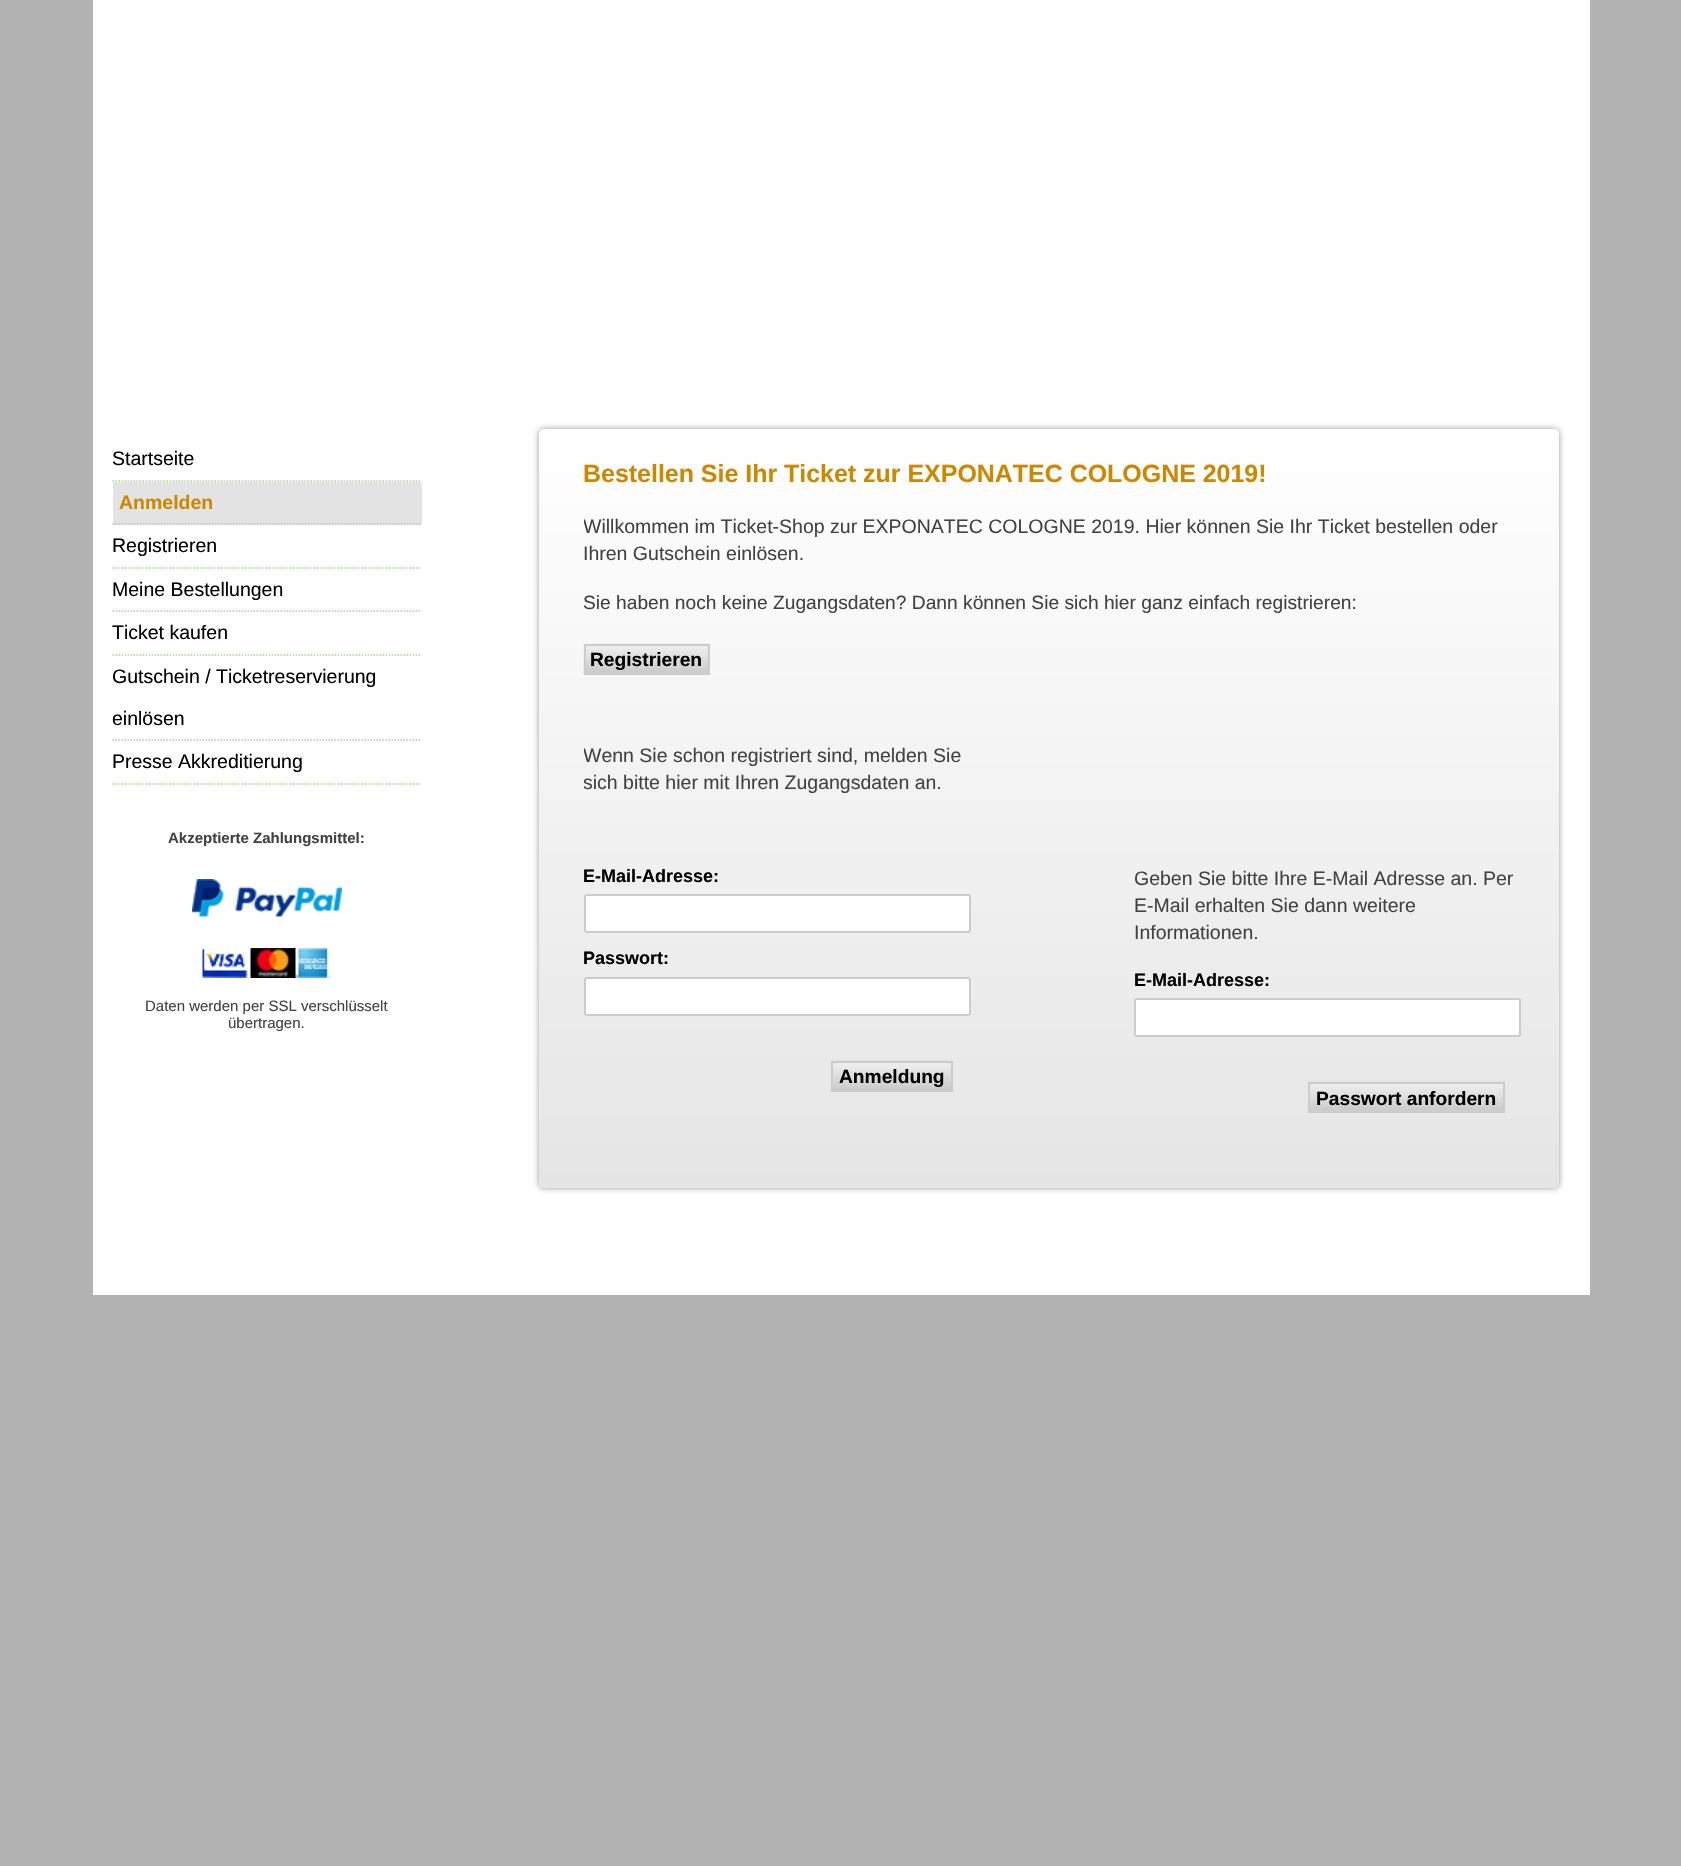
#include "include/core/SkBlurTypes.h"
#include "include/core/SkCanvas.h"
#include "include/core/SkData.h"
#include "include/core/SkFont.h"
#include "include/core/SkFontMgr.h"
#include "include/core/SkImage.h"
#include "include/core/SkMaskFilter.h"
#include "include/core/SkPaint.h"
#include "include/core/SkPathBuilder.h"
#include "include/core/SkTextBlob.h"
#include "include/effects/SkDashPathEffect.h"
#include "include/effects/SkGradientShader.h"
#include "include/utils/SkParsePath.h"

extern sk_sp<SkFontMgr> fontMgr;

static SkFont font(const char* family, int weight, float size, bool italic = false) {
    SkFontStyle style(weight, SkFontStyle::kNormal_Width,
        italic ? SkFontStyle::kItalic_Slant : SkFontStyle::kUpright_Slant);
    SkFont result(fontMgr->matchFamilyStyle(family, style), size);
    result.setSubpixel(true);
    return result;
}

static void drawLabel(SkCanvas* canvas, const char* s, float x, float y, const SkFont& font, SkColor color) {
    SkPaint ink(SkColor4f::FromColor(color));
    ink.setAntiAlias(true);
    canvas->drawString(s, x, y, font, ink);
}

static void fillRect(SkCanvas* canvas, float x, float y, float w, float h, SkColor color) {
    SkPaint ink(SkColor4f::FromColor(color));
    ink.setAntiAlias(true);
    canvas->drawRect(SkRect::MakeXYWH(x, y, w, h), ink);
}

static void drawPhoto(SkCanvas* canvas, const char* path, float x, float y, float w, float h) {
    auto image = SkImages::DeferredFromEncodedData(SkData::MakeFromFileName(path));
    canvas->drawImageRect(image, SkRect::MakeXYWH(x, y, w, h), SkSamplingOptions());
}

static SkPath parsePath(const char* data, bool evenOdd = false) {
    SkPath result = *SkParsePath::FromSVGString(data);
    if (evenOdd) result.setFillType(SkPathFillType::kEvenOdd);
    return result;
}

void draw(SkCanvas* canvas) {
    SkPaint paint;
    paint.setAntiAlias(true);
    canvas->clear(0xFFB2B2B2);
    fillRect(canvas, 93, 0, 1497, 1295, 0xFFFFFFFF);
    paint.setStroke(true);
    paint.setStrokeWidth(1.5f);
    paint.setColor(0xFFACCF95);
    paint.setPathEffect(SkDashPathEffect::Make({{1.5f, 1.5f}}, 0));
    canvas->drawPath(parsePath("M112.5 481H421.5"), paint);
    paint.setPathEffect(nullptr);
    SkFont font1 = font("Liberation Sans", 400, 19.5f);
    drawLabel(canvas, "Startseite", 112, 465, font1, 0xFF000000);
    fillRect(canvas, 113, 482, 309, 43, 0xFFE3E3E3);
    paint.setPathEffect(SkDashPathEffect::Make({{1.5f, 1.5f}}, 0));
    canvas->drawPath(parsePath("M112.5 524H421.5"), paint);
    paint.setPathEffect(nullptr);
    SkFont font2 = font("Liberation Sans", 700, 19.5f);
    drawLabel(canvas, "Anmelden", 119, 509, font2, 0xFFCC8801);
    paint.setPathEffect(SkDashPathEffect::Make({{1.5f, 1.5f}}, 0));
    canvas->drawPath(parsePath("M112.5 568H421.5"), paint);
    paint.setPathEffect(nullptr);
    drawLabel(canvas, "Registrieren", 112, 552, font1, 0xFF000000);
    paint.setPathEffect(SkDashPathEffect::Make({{1.5f, 1.5f}}, 0));
    canvas->drawPath(parsePath("M112.5 611H421.5"), paint);
    paint.setPathEffect(nullptr);
    drawLabel(canvas, "Meine Bestellungen", 112, 596, font1, 0xFF000000);
    paint.setPathEffect(SkDashPathEffect::Make({{1.5f, 1.5f}}, 0));
    canvas->drawPath(parsePath("M112.5 655H421.5"), paint);
    paint.setPathEffect(nullptr);
    drawLabel(canvas, "Ticket kaufen", 112, 639, font1, 0xFF000000);
    paint.setPathEffect(SkDashPathEffect::Make({{1.5f, 1.5f}}, 0));
    canvas->drawPath(parsePath("M112.5 740H421.5"), paint);
    paint.setPathEffect(nullptr);
    drawLabel(canvas, "Gutschein / Ticketreservierung", 112, 683, font1, 0xFF000000);
    drawLabel(canvas, "einlösen", 112, 725, font1, 0xFF000000);
    paint.setPathEffect(SkDashPathEffect::Make({{1.5f, 1.5f}}, 0));
    canvas->drawPath(parsePath("M112.5 784H421.5"), paint);
    paint.setPathEffect(nullptr);
    drawLabel(canvas, "Presse Akkreditierung", 112, 768, font1, 0xFF000000);
    SkFont font3 = font("Liberation Sans", 700, 15);
    drawLabel(canvas, "Akzeptierte Zahlungsmittel:", 168, 843, font3, 0xFF424242);
    drawPhoto(canvas, "assets/img1.png", 192, 879, 150, 38);
    drawPhoto(canvas, "assets/img2.png", 202, 948, 128, 30);
    SkFont font4 = font("Liberation Sans", 400, 15);
    drawLabel(canvas, "Daten werden per SSL verschlüsselt", 145, 1011, font4, 0xFF424242);
    drawLabel(canvas, "übertragen.", 228, 1028, font4, 0xFF424242);
    paint.setStroke(false);
    paint.setColor(0xFF999999);
    paint.setMaskFilter(SkMaskFilter::MakeBlur(kNormal_SkBlurStyle, 3));
    canvas->drawRoundRect(SkRect::MakeXYWH(539, 429, 1020, 759), 5, 5, paint);
    paint.setMaskFilter(nullptr);
    {
        const SkColor colors[] = {0xFFFFFFFF, 0xFFE5E5E5};
        const float stops[] = {0, 1};
        const SkPoint ends[] = {{1049, 429}, {1049, 1188}};
        paint.setShader(SkGradientShader::MakeLinear(ends, colors, stops, 2, SkTileMode::kClamp));
        paint.setAlpha(255);
    }
    canvas->drawRoundRect(SkRect::MakeXYWH(539, 429, 1020, 759), 5, 5, paint);
    SkFont font5 = font("Liberation Sans", 700, 24.95f);
    drawLabel(canvas, "Bestellen Sie Ihr Ticket zur EXPONATEC COLOGNE 2019!", 583, 482, font5, 0xFFCC8801);
    canvas->save();
    canvas->clipRect(SkRect::MakeXYWH(584, 459, 951, 362));
    drawLabel(canvas, "Willkommen im Ticket-Shop zur EXPONATEC COLOGNE 2019. Hier können Sie Ihr Ticket bestellen oder", 583, 533, font1, 0xFF424242);
    canvas->restore();
    drawLabel(canvas, "Ihren Gutschein einlösen.", 583, 560, font1, 0xFF424242);
    SkFont font6 = font("Liberation Sans", 400, 19.2f);
    drawLabel(canvas, "Sie haben noch keine Zugangsdaten? Dann können Sie sich hier ganz einfach registrieren:", 583, 609, font6, 0xFF424242);
    fillRect(canvas, 586, 646, 122, 27, 0xFFFFFFFF);
    drawPhoto(canvas, "assets/img3.png", 583, 643, 126, 31);
    paint.setStroke(true);
    paint.setStrokeWidth(2);
    paint.setShader(nullptr);
    paint.setColor(0xFFCCCCCC);
    canvas->drawRect(SkRect::MakeXYWH(585, 645, 124, 29), paint);
    SkFont font7 = font("Liberation Sans", 700, 19.2f);
    drawLabel(canvas, "Registrieren", 590, 666, font7, 0xFF000000);
    canvas->save();
    canvas->clipRect(SkRect::MakeXYWH(584, 459, 951, 362));
    drawLabel(canvas, "Wenn Sie schon registriert sind, melden Sie", 583, 762, font1, 0xFF424242);
    drawLabel(canvas, "sich bitte hier mit Ihren Zugangsdaten an.", 583, 789, font1, 0xFF424242);
    canvas->restore();
    SkFont font8 = font("Liberation Sans", 700, 18);
    drawLabel(canvas, "E-Mail-Adresse:", 583, 882, font8, 0xFF000000);
    paint.setStroke(false);
    paint.setColor(0xFFFFFFFF);
    canvas->drawRoundRect(SkRect::MakeXYWH(585, 895, 385, 37), 2, 2, paint);
    paint.setStroke(true);
    paint.setColor(0xFFCCCCCC);
    canvas->drawRoundRect(SkRect::MakeXYWH(585, 895, 385, 37), 2, 2, paint);
    drawLabel(canvas, "Passwort:", 583, 964, font8, 0xFF000000);
    paint.setStroke(false);
    paint.setColor(0xFFFFFFFF);
    canvas->drawRoundRect(SkRect::MakeXYWH(585, 978, 385, 37), 2, 2, paint);
    paint.setStroke(true);
    paint.setColor(0xFFCCCCCC);
    canvas->drawRoundRect(SkRect::MakeXYWH(585, 978, 385, 37), 2, 2, paint);
    fillRect(canvas, 833, 1063, 118, 27, 0xFFFFFFFF);
    drawPhoto(canvas, "assets/img4.png", 831, 1060, 121, 30);
    canvas->drawRect(SkRect::MakeXYWH(832, 1062, 120, 29), paint);
    drawLabel(canvas, "Anmeldung", 839, 1083, font7, 0xFF000000);
    drawLabel(canvas, "Geben Sie bitte Ihre E-Mail Adresse an. Per", 1134, 885, font1, 0xFF424242);
    drawLabel(canvas, "E-Mail erhalten Sie dann weitere", 1134, 912, font1, 0xFF424242);
    drawLabel(canvas, "Informationen.", 1134, 939, font1, 0xFF424242);
    drawLabel(canvas, "E-Mail-Adresse:", 1134, 986, font8, 0xFF000000);
    paint.setStroke(false);
    paint.setColor(0xFFFFFFFF);
    canvas->drawRoundRect(SkRect::MakeXYWH(1135, 999, 385, 37), 2, 2, paint);
    paint.setStroke(true);
    paint.setColor(0xFFCCCCCC);
    canvas->drawRoundRect(SkRect::MakeXYWH(1135, 999, 385, 37), 2, 2, paint);
    fillRect(canvas, 1310, 1084, 193, 27, 0xFFFFFFFF);
    drawPhoto(canvas, "assets/img5.png", 1308, 1081, 196, 30);
    canvas->drawRect(SkRect::MakeXYWH(1309, 1083, 195, 29), paint);
    drawLabel(canvas, "Passwort anfordern", 1316, 1105, font7, 0xFF000000);
}
